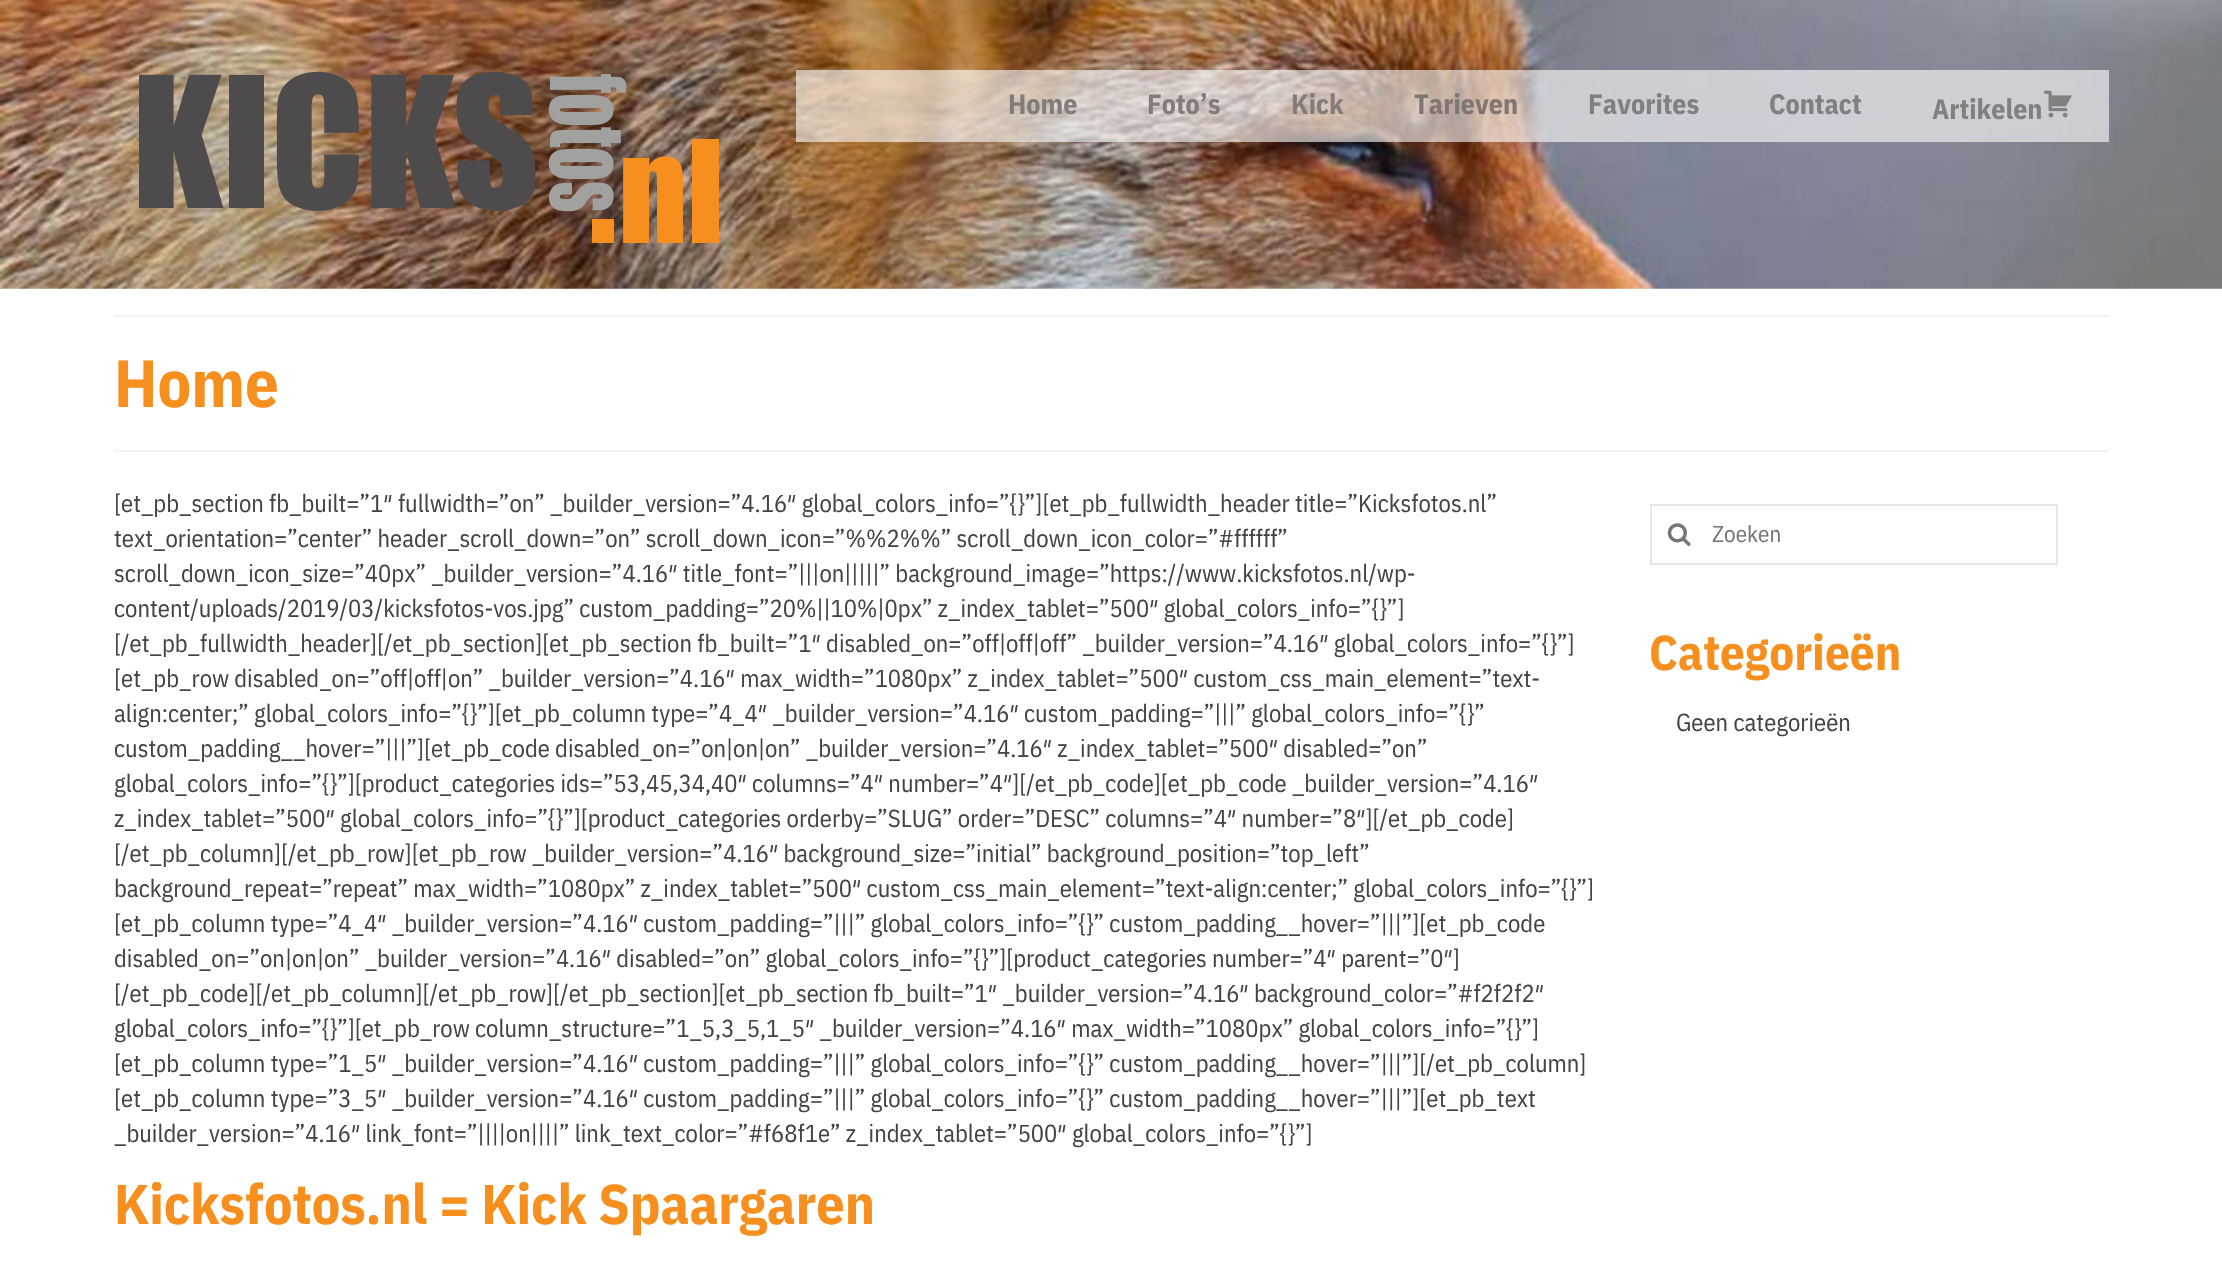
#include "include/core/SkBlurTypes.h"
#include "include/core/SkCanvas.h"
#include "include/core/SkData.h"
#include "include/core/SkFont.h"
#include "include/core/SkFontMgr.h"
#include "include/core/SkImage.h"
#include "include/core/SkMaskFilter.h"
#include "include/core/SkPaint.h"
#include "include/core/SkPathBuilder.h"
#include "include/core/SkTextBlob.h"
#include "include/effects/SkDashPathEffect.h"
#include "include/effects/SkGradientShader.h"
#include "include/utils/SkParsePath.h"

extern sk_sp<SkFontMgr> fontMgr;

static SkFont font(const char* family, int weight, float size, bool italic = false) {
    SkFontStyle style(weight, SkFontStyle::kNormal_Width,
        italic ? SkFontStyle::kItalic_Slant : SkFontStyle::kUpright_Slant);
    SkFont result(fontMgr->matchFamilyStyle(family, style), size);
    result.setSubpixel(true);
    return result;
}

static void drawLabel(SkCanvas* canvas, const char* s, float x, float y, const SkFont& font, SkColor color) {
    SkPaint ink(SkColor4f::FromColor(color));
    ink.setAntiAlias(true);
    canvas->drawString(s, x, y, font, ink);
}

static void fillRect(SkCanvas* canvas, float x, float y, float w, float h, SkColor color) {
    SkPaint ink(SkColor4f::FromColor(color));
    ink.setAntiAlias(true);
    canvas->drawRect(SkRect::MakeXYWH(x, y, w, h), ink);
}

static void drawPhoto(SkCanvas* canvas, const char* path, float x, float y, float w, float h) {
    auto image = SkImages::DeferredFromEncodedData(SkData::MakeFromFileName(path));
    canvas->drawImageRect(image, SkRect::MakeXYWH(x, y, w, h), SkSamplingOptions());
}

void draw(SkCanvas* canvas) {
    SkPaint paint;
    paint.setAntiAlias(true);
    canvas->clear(0xFFFFFFFF);
    drawPhoto(canvas, "assets/img1.png", 0, 0, 2222, 289);
    drawPhoto(canvas, "assets/img2.png", 138, 71, 581, 172);
    fillRect(canvas, 796, 70, 1313, 72, 0x99FFFFFF);
    SkFont font1 = font("IBM Plex Sans Condensed", 700, 28);
    drawLabel(canvas, "Home", 1008, 114, font1, 0xFF837D79);
    drawLabel(canvas, "Foto’s", 1147, 114, font1, 0xFF837D79);
    drawLabel(canvas, "Kick", 1291, 114, font1, 0xFF837D79);
    drawLabel(canvas, "Tarieven", 1414, 114, font1, 0xFF807671);
    drawLabel(canvas, "Favorites", 1588, 114, font1, 0xFF807F82);
    drawLabel(canvas, "Contact", 1769, 114, font1, 0xFF807F82);
    drawLabel(canvas, "Artikelen", 1932, 119, font1, 0xFF807F82);
    drawPhoto(canvas, "assets/img3.png", 2043, 90, 29, 28);
    fillRect(canvas, 114, 315, 1995, 2, 0xFFF2F2F2);
    fillRect(canvas, 114, 450, 1995, 2, 0xFFF2F2F2);
    SkFont font2 = font("IBM Plex Sans Condensed", 700, 66.5f);
    drawLabel(canvas, "Home", 114, 407, font2, 0xFFF68F1E);
    SkFont font3 = font("IBM Plex Sans Condensed", 400, 24.5f);
    drawLabel(canvas, "[et_pb_section fb_built=”1″ fullwidth=”on” _builder_version=”4.16″ global_colors_info=”{}”][et_pb_fullwidth_header title=”Kicksfotos.nl”", 114, 512, font3, 0xFF444444);
    drawLabel(canvas, "text_orientation=”center” header_scroll_down=”on” scroll_down_icon=”%%2%%” scroll_down_icon_color=”#ffffff”", 114, 547, font3, 0xFF444444);
    drawLabel(canvas, "scroll_down_icon_size=”40px” _builder_version=”4.16″ title_font=”|||on|||||” background_image=”https://www.kicksfotos.nl/wp-", 114, 582, font3, 0xFF444444);
    drawLabel(canvas, "content/uploads/2019/03/kicksfotos-vos.jpg” custom_padding=”20%||10%|0px” z_index_tablet=”500″ global_colors_info=”{}”]", 114, 617, font3, 0xFF444444);
    drawLabel(canvas, "[/et_pb_fullwidth_header][/et_pb_section][et_pb_section fb_built=”1″ disabled_on=”off|off|off” _builder_version=”4.16″ global_colors_info=”{}”]", 114, 652, font3, 0xFF444444);
    drawLabel(canvas, "[et_pb_row disabled_on=”off|off|on” _builder_version=”4.16″ max_width=”1080px” z_index_tablet=”500″ custom_css_main_element=”text-", 114, 687, font3, 0xFF444444);
    drawLabel(canvas, "align:center;” global_colors_info=”{}”][et_pb_column type=”4_4″ _builder_version=”4.16″ custom_padding=”|||” global_colors_info=”{}”", 114, 722, font3, 0xFF444444);
    drawLabel(canvas, "custom_padding__hover=”|||”][et_pb_code disabled_on=”on|on|on” _builder_version=”4.16″ z_index_tablet=”500″ disabled=”on”", 114, 757, font3, 0xFF444444);
    drawLabel(canvas, "global_colors_info=”{}”][product_categories ids=”53,45,34,40″ columns=”4″ number=”4″][/et_pb_code][et_pb_code _builder_version=”4.16″", 114, 792, font3, 0xFF444444);
    drawLabel(canvas, "z_index_tablet=”500″ global_colors_info=”{}”][product_categories orderby=”SLUG” order=”DESC” columns=”4″ number=”8″][/et_pb_code]", 114, 827, font3, 0xFF444444);
    drawLabel(canvas, "[/et_pb_column][/et_pb_row][et_pb_row _builder_version=”4.16″ background_size=”initial” background_position=”top_left”", 114, 862, font3, 0xFF444444);
    drawLabel(canvas, "background_repeat=”repeat” max_width=”1080px” z_index_tablet=”500″ custom_css_main_element=”text-align:center;” global_colors_info=”{}”]", 114, 897, font3, 0xFF444444);
    drawLabel(canvas, "[et_pb_column type=”4_4″ _builder_version=”4.16″ custom_padding=”|||” global_colors_info=”{}” custom_padding__hover=”|||”][et_pb_code", 114, 932, font3, 0xFF444444);
    drawLabel(canvas, "disabled_on=”on|on|on” _builder_version=”4.16″ disabled=”on” global_colors_info=”{}”][product_categories number=”4″ parent=”0″]", 114, 967, font3, 0xFF444444);
    drawLabel(canvas, "[/et_pb_code][/et_pb_column][/et_pb_row][/et_pb_section][et_pb_section fb_built=”1″ _builder_version=”4.16″ background_color=”#f2f2f2″", 114, 1002, font3, 0xFF444444);
    drawLabel(canvas, "global_colors_info=”{}”][et_pb_row column_structure=”1_5,3_5,1_5″ _builder_version=”4.16″ max_width=”1080px” global_colors_info=”{}”]", 114, 1037, font3, 0xFF444444);
    drawLabel(canvas, "[et_pb_column type=”1_5″ _builder_version=”4.16″ custom_padding=”|||” global_colors_info=”{}” custom_padding__hover=”|||”][/et_pb_column]", 114, 1072, font3, 0xFF444444);
    drawLabel(canvas, "[et_pb_column type=”3_5″ _builder_version=”4.16″ custom_padding=”|||” global_colors_info=”{}” custom_padding__hover=”|||”][et_pb_text", 114, 1107, font3, 0xFF444444);
    drawLabel(canvas, "_builder_version=”4.16″ link_font=”||||on||||” link_text_color=”#f68f1e” z_index_tablet=”500″ global_colors_info=”{}”]", 114, 1142, font3, 0xFF444444);
    SkFont font4 = font("IBM Plex Sans Condensed", 700, 56);
    drawLabel(canvas, "Kicksfotos.nl = Kick Spaargaren", 114, 1224, font4, 0xFFF68F1E);
    paint.setStroke(true);
    paint.setStrokeWidth(2);
    paint.setColor(0xFFE7E7E7);
    canvas->drawRect(SkRect::MakeXYWH(1651, 505, 406, 59), paint);
    drawPhoto(canvas, "assets/img4.png", 1667, 523, 24, 23);
    SkFont font5 = font("IBM Plex Sans Condensed", 400, 23);
    drawLabel(canvas, "Zoeken", 1712, 542, font5, 0xFF757575);
    SkFont font6 = font("IBM Plex Sans Condensed", 700, 49);
    drawLabel(canvas, "Categorieën", 1649, 670, font6, 0xFFF68F1E);
    drawLabel(canvas, "Geen categorieën", 1676, 731, font3, 0xFF444444);
}
